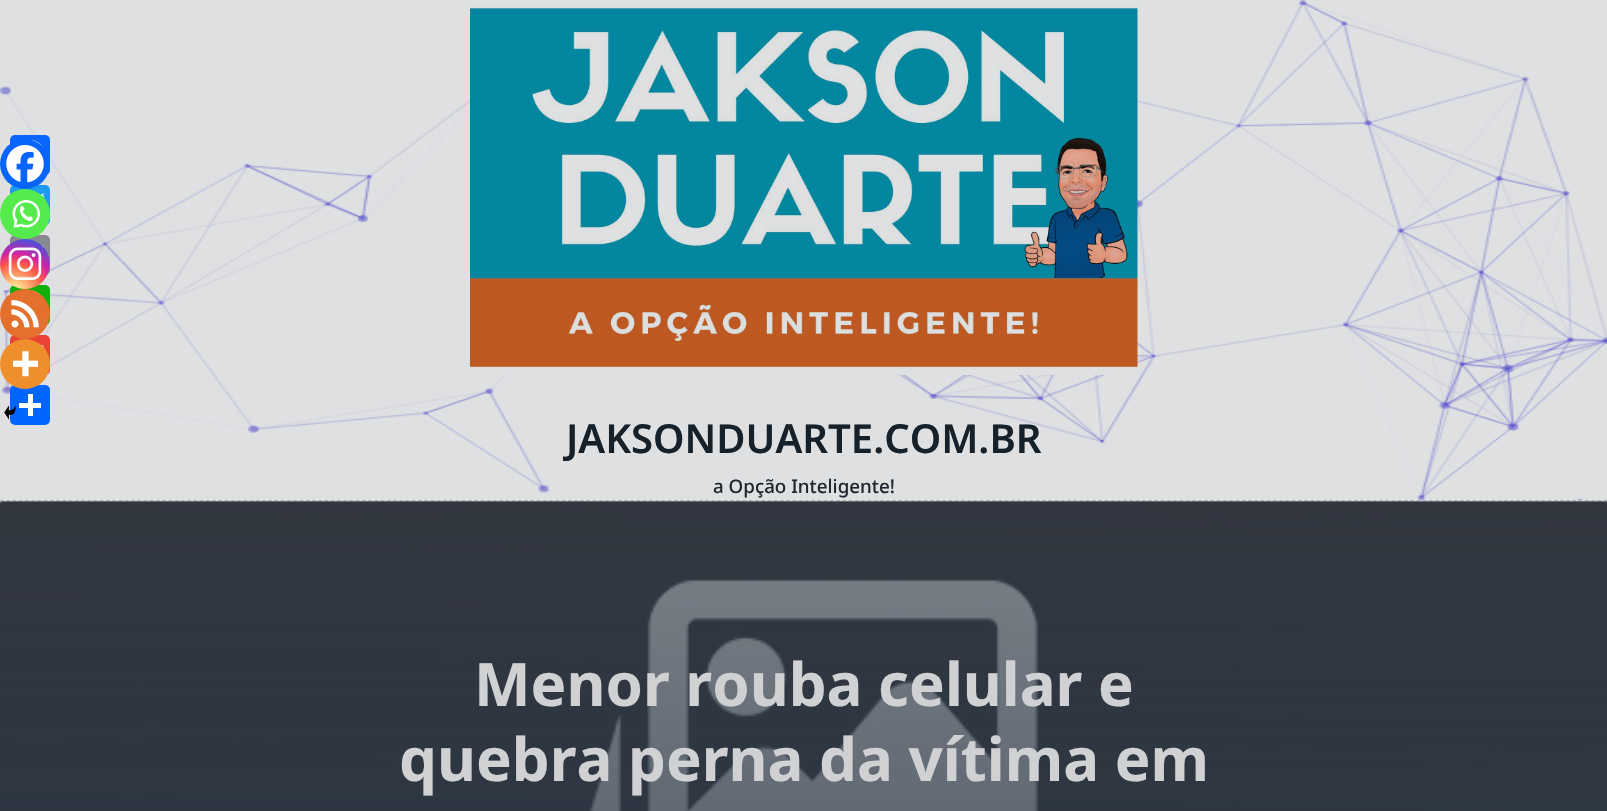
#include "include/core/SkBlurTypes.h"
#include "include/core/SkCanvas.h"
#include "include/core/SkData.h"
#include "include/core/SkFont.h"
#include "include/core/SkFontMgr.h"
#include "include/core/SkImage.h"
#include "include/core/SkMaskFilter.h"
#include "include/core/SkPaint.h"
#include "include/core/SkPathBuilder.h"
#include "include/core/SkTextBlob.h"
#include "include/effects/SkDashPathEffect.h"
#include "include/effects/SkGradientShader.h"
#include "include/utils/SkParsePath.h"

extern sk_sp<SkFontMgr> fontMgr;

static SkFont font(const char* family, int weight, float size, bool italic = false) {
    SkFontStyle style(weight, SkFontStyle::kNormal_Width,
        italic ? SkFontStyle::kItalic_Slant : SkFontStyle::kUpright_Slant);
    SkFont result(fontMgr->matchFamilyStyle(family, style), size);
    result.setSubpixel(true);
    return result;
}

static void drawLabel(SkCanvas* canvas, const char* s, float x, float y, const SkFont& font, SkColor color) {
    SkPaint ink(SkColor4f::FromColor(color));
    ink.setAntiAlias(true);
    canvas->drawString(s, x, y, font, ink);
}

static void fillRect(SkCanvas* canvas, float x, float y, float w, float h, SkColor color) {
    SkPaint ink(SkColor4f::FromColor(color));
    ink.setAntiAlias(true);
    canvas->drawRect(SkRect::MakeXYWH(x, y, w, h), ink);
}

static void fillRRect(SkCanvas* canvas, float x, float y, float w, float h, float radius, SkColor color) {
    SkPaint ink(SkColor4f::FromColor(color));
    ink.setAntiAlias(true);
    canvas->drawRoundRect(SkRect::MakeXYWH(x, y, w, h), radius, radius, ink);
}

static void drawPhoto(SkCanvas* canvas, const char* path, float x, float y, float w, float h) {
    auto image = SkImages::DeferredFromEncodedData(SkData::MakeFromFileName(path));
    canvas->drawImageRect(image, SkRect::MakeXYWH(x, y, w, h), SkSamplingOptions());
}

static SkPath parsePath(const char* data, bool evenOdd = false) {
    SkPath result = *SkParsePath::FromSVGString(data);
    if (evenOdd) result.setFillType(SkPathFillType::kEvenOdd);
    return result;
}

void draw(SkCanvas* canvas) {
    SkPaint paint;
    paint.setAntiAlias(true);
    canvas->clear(0xFFD9DBDB);
    fillRect(canvas, 0, 0, 1607, 501, 0xFFDFE0E1);
    drawPhoto(canvas, "assets/img14.png", 0, 501, 1607, 310);
    {
        const SkColor colors[] = {0x422E3D4E, 0xBA2E3D4E};
        const float stops[] = {0, 1};
        const SkPoint ends[] = {{804, 501}, {804, 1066}};
        paint.setShader(SkGradientShader::MakeLinear(ends, colors, stops, 2, SkTileMode::kClamp));
        paint.setAlpha(255);
    }
    canvas->drawRect(SkRect::MakeXYWH(0, 501, 1607, 310), paint);
    paint.setStroke(true);
    paint.setStrokeWidth(1.2f);
    paint.setShader(nullptr);
    paint.setColor(0xFFADAFAF);
    paint.setPathEffect(SkDashPathEffect::Make({{3.75f, 2.49f}}, 0));
    canvas->drawPath(parsePath("M0 500.5H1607.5"), paint);
    paint.setPathEffect(nullptr);
    drawPhoto(canvas, "assets/img12.png", 0, 0, 1607, 500);
    fillRRect(canvas, 10, 135, 40, 40, 5, 0xFF0866FF);
    drawPhoto(canvas, "assets/img1.png", 32, 140, 12, 8);
    fillRRect(canvas, 10, 185, 40, 40, 5, 0xFF1D9BF0);
    drawPhoto(canvas, "assets/img2.png", 38, 193, 7, 5);
    fillRRect(canvas, 10, 235, 40, 40, 5, 0xFF888990);
    drawPhoto(canvas, "assets/img3.png", 41, 245, 3, 3);
    fillRRect(canvas, 10, 285, 40, 40, 5, 0xFF12AF0A);
    drawPhoto(canvas, "assets/img4.png", 32, 290, 10, 6);
    fillRRect(canvas, 10, 335, 40, 40, 5, 0xFFEA4335);
    drawPhoto(canvas, "assets/img5.png", 41, 345, 3, 3);
    fillRRect(canvas, 10, 385, 40, 40, 5, 0xFF0166FF);
    fillRect(canvas, 28, 394, 5, 22, 0xFFFFFFFF);
    fillRect(canvas, 19, 403, 22, 5, 0xFFFFFFFF);
    paint.setStroke(false);
    paint.setColor(0xFF0765FE);
    canvas->drawCircle(25, 164, 25, paint);
    drawPhoto(canvas, "assets/img6.png", 6, 145, 38, 38);
    paint.setColor(0xFF55EB4C);
    canvas->drawCircle(25, 214, 25, paint);
    drawPhoto(canvas, "assets/img7.png", 12, 200, 28, 28);
    {
        const SkColor colors[] = {0xFFFDF497, 0xFFFDF497, 0xFFFD5949, 0xFFD6249F, 0xFF285AEB};
        const float stops[] = {0, 0.05f, 0.45f, 0.6f, 0.9f};
        paint.setShader(SkGradientShader::MakeRadial({15, 292}, 64, colors, stops, 5, SkTileMode::kClamp));
        paint.setAlpha(255);
    }
    canvas->drawCircle(25, 264, 25, paint);
    drawPhoto(canvas, "assets/img8.png", 8, 247, 34, 33);
    paint.setShader(nullptr);
    paint.setColor(0xFFE3702D);
    canvas->drawCircle(25, 314, 25, paint);
    drawPhoto(canvas, "assets/img9.png", 11, 300, 28, 28);
    paint.setColor(0xFFEE8E2D);
    canvas->drawCircle(25, 364, 25, paint);
    drawPhoto(canvas, "assets/img10.png", 12, 351, 26, 26);
    drawPhoto(canvas, "assets/img11.png", 4, 405, 12, 15);
    drawPhoto(canvas, "assets/img13.png", 470, 0, 668, 375);
    SkFont font1 = font("Noto Sans", 600, 40);
    drawLabel(canvas, "JAKSONDUARTE.COM.BR", 566, 453, font1, 0xFF17212A);
    SkFont font2 = font("Noto Sans", 500, 18.75f);
    drawLabel(canvas, "a Opção Inteligente!", 713, 493, font2, 0xFF202932);
    SkFont font3 = font("Noto Sans", 700, 60);
    drawLabel(canvas, "Menor rouba celular e", 474, 706, font3, 0xFFD0D1D3);
    drawLabel(canvas, "quebra perna da vítima em", 399, 781, font3, 0xFFD0D1D3);
}
